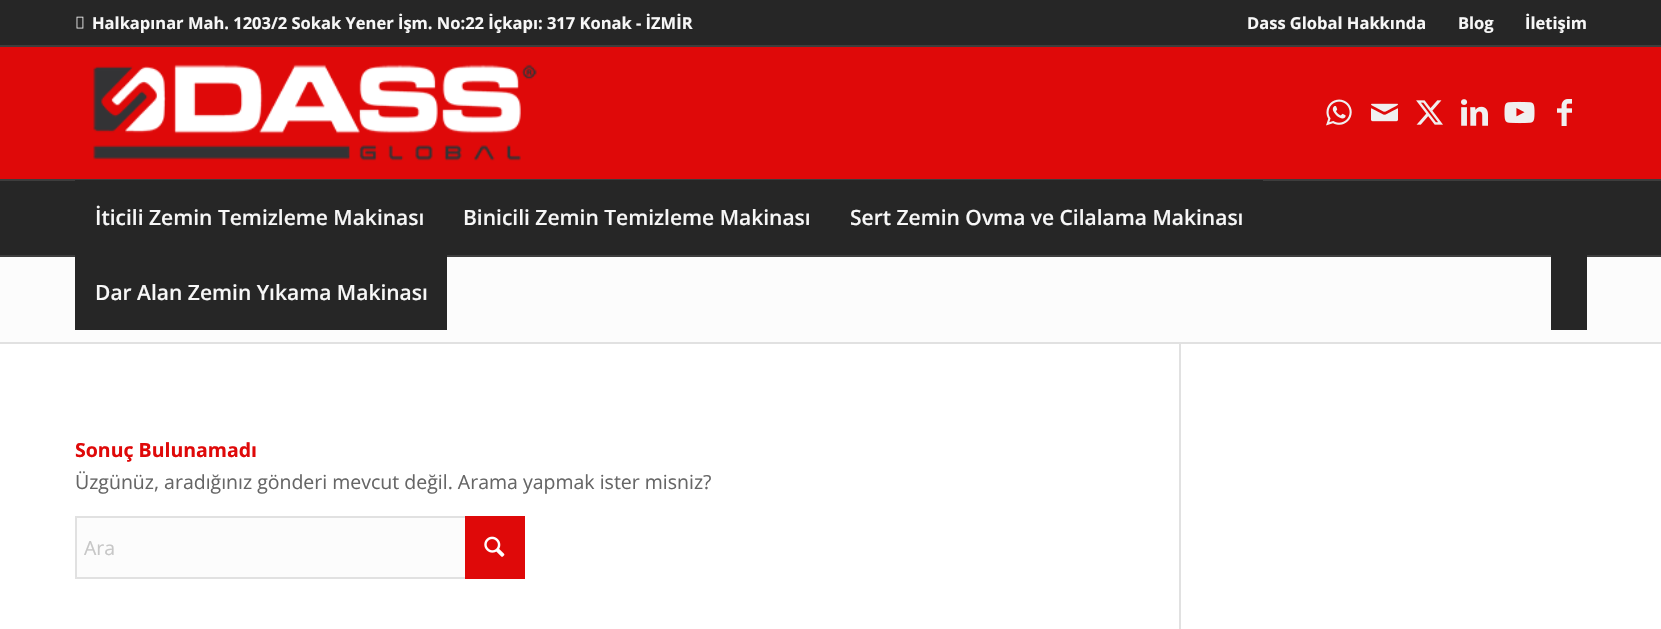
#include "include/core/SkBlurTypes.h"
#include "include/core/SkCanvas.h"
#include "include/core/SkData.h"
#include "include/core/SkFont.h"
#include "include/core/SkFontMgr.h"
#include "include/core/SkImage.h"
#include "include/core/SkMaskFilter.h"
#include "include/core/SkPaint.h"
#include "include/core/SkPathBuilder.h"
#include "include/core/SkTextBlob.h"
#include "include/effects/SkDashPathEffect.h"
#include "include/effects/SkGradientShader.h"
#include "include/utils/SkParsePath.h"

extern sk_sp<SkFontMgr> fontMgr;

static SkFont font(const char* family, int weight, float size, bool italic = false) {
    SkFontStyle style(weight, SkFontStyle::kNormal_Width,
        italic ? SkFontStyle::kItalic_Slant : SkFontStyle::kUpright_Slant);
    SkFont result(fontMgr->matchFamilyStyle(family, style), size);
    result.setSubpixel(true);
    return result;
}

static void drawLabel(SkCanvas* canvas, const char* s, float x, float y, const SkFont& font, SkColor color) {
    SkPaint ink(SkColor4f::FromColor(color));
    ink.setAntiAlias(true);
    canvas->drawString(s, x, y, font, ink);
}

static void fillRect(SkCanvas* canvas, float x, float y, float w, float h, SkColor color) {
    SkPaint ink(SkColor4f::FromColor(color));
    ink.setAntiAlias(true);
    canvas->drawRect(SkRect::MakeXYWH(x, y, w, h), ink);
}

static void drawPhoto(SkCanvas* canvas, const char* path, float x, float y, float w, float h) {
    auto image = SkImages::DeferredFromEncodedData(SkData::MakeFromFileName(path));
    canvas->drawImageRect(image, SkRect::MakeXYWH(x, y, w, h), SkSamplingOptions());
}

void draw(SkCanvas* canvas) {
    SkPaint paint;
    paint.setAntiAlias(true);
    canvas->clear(0xFFDF0909);
    fillRect(canvas, 0, 0, 1661, 45, 0xFF262626);
    fillRect(canvas, 0, 45, 1661, 2, 0xFF3D3D3D);
    drawPhoto(canvas, "assets/img1.png", 76, 16, 8, 13);
    SkFont font1 = font("Open Sans", 700, 16.5f);
    drawLabel(canvas, "Halkapınar Mah. 1203/2 Sokak Yener İşm. No:22 İçkapı: 317 Konak - İZMİR", 92, 29, font1, 0xFFF7F7F7);
    drawLabel(canvas, "Dass Global Hakkında", 1247, 29, font1, 0xFFF7F7F7);
    drawLabel(canvas, "Blog", 1458, 29, font1, 0xFFF7F7F7);
    drawLabel(canvas, "İletişim", 1525, 29, font1, 0xFFF7F7F7);
    fillRect(canvas, 0, 255, 1661, 2, 0xFF3D3D3D);
    drawPhoto(canvas, "assets/img2.png", 93, 64, 444, 97);
    drawPhoto(canvas, "assets/img3.png", 1326, 99, 26, 27);
    drawPhoto(canvas, "assets/img4.png", 1371, 103, 27, 19);
    drawPhoto(canvas, "assets/img5.png", 1416, 100, 27, 25);
    drawPhoto(canvas, "assets/img6.png", 1461, 99, 27, 27);
    drawPhoto(canvas, "assets/img7.png", 1504, 101, 31, 23);
    drawPhoto(canvas, "assets/img8.png", 1557, 99, 15, 27);
    fillRect(canvas, 0, 181, 1661, 74, 0xFF262626);
    fillRect(canvas, 0, 179, 1661, 2, 0xFF3D3D3D);
    fillRect(canvas, 75, 180, 1188, 1, 0xFF262626);
    SkFont font2 = font("Open Sans", 600, 21);
    drawLabel(canvas, "İticili Zemin Temizleme Makinası", 95, 225, font2, 0xFFF7F7F7);
    drawLabel(canvas, "Binicili Zemin Temizleme Makinası", 463, 225, font2, 0xFFF7F7F7);
    drawLabel(canvas, "Sert Zemin Ovma ve Cilalama Makinası", 850, 225, font2, 0xFFF7F7F7);
    fillRect(canvas, 0, 257, 1661, 85, 0xFFFCFCFC);
    fillRect(canvas, 75, 255, 372, 75, 0xFF262626);
    drawLabel(canvas, "Dar Alan Zemin Yıkama Makinası", 95, 300, font2, 0xFFF7F7F7);
    fillRect(canvas, 1551, 255, 36, 75, 0xFF262626);
    fillRect(canvas, 0, 344, 1661, 285, 0xFFFFFFFF);
    fillRect(canvas, 0, 342, 1661, 2, 0xFFE1E1E1);
    fillRect(canvas, 1179, 344, 2, 285, 0xFFE1E1E1);
    SkFont font3 = font("Open Sans", 700, 19.5f);
    drawLabel(canvas, "Sonuç Bulunamadı", 75, 457, font3, 0xFFDF0909);
    SkFont font4 = font("Open Sans", 400, 19.5f);
    drawLabel(canvas, "Üzgünüz, aradığınız gönderi mevcut değil. Arama yapmak ister misniz?", 75, 489, font4, 0xFF666666);
    fillRect(canvas, 77, 518, 388, 59, 0xFFFCFCFC);
    paint.setStroke(true);
    paint.setStrokeWidth(2);
    paint.setColor(0xFFE1E1E1);
    canvas->drawRect(SkRect::MakeXYWH(76, 517, 448, 61), paint);
    fillRect(canvas, 465, 516, 60, 63, 0xFFDF0909);
    drawLabel(canvas, "Ara", 84, 555, font4, 0xFFC7C7C7);
    drawPhoto(canvas, "assets/img9.png", 484, 536, 21, 21);
}
